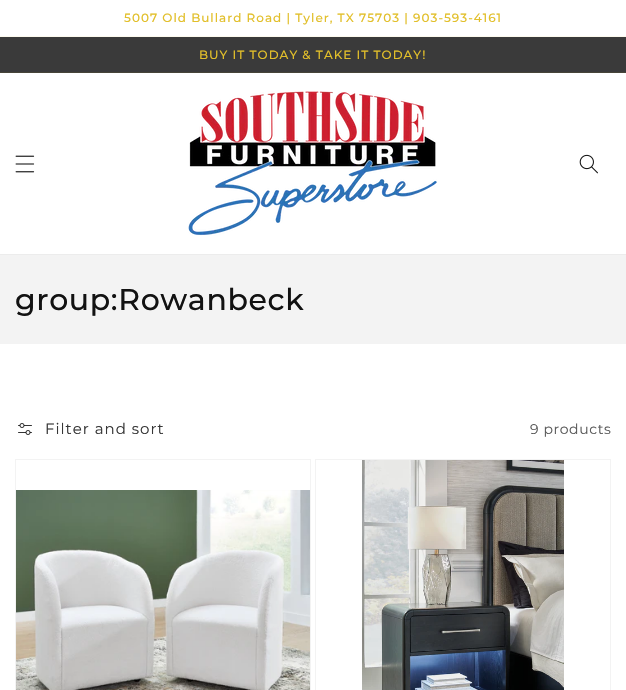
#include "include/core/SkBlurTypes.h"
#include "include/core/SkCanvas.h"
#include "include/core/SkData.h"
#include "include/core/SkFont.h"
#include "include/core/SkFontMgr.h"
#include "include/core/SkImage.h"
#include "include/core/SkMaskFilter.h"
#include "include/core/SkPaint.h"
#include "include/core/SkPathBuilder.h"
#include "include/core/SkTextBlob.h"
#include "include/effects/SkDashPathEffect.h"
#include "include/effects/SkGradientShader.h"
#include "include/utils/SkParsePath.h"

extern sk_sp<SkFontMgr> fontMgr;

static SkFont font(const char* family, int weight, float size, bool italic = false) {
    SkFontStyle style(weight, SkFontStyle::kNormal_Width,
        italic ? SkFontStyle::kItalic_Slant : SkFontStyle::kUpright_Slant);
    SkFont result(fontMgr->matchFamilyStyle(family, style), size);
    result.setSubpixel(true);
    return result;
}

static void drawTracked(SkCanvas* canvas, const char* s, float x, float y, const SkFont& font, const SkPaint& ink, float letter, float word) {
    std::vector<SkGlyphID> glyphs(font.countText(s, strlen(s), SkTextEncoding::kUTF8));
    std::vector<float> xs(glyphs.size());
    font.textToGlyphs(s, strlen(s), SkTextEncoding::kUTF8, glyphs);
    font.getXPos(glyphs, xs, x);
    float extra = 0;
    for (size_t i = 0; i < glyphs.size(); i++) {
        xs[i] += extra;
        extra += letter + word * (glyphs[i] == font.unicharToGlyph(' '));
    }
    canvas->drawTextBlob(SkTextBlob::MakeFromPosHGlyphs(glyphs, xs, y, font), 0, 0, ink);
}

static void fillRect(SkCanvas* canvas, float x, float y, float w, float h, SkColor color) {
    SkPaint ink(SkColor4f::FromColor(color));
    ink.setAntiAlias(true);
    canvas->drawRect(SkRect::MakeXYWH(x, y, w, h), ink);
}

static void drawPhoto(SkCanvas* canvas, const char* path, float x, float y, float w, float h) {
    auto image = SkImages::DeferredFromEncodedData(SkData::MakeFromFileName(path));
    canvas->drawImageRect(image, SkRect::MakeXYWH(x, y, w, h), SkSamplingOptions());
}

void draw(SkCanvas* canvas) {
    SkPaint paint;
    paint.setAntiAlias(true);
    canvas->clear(0xFFFFFFFF);
    fillRect(canvas, 0, 36, 626, 1, 0xFFFDFAEE);
    SkFont font1 = font("Montserrat", 500, 12);
    paint.setColor(0xFFE2BF2A);
    drawTracked(canvas, "5007 Old Bullard Road | Tyler, TX 75703 | 903-593-4161", 124, 22, font1, paint, 1, 0);
    fillRect(canvas, 0, 37, 626, 35, 0xFF3A3A3A);
    fillRect(canvas, 0, 72, 626, 1, 0xFF474539);
    drawTracked(canvas, "BUY IT TODAY & TAKE IT TODAY!", 199, 59, font1, paint, 1, 0);
    fillRect(canvas, 0, 254, 626, 1, 0xFFECECEC);
    drawPhoto(canvas, "assets/img1.png", 15, 155, 20, 18);
    drawPhoto(canvas, "assets/img2.png", 188, 91, 249, 145);
    drawPhoto(canvas, "assets/img3.png", 579, 154, 19, 20);
    fillRect(canvas, 0, 255, 626, 89, 0xFFF3F3F3);
    SkFont font2 = font("Montserrat", 500, 30);
    paint.setColor(0xFF121212);
    drawTracked(canvas, "group:Rowanbeck", 15, 310, font2, paint, 0.6f, 0);
    drawPhoto(canvas, "assets/img4.png", 18, 423, 14, 12);
    SkFont font3 = font("Montserrat", 400, 15);
    paint.setColor(0xFF363636);
    drawTracked(canvas, "Filter and sort", 45, 434, font3, paint, 1, 0);
    SkFont font4 = font("Montserrat", 400, 14);
    paint.setColor(0xFF595959);
    drawTracked(canvas, "9 products", 530, 434, font4, paint, 0.6f, 0);
    paint.setStroke(true);
    paint.setStrokeWidth(1);
    paint.setColor(0xFFF3F3F3);
    canvas->drawRect(SkRect::MakeXYWH(15.5f, 459.5f, 295, 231), paint);
    drawPhoto(canvas, "assets/img5.png", 16, 490, 294, 200);
    canvas->drawRect(SkRect::MakeXYWH(315.5f, 459.5f, 295, 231), paint);
    drawPhoto(canvas, "assets/img6.png", 362, 460, 202, 230);
}
